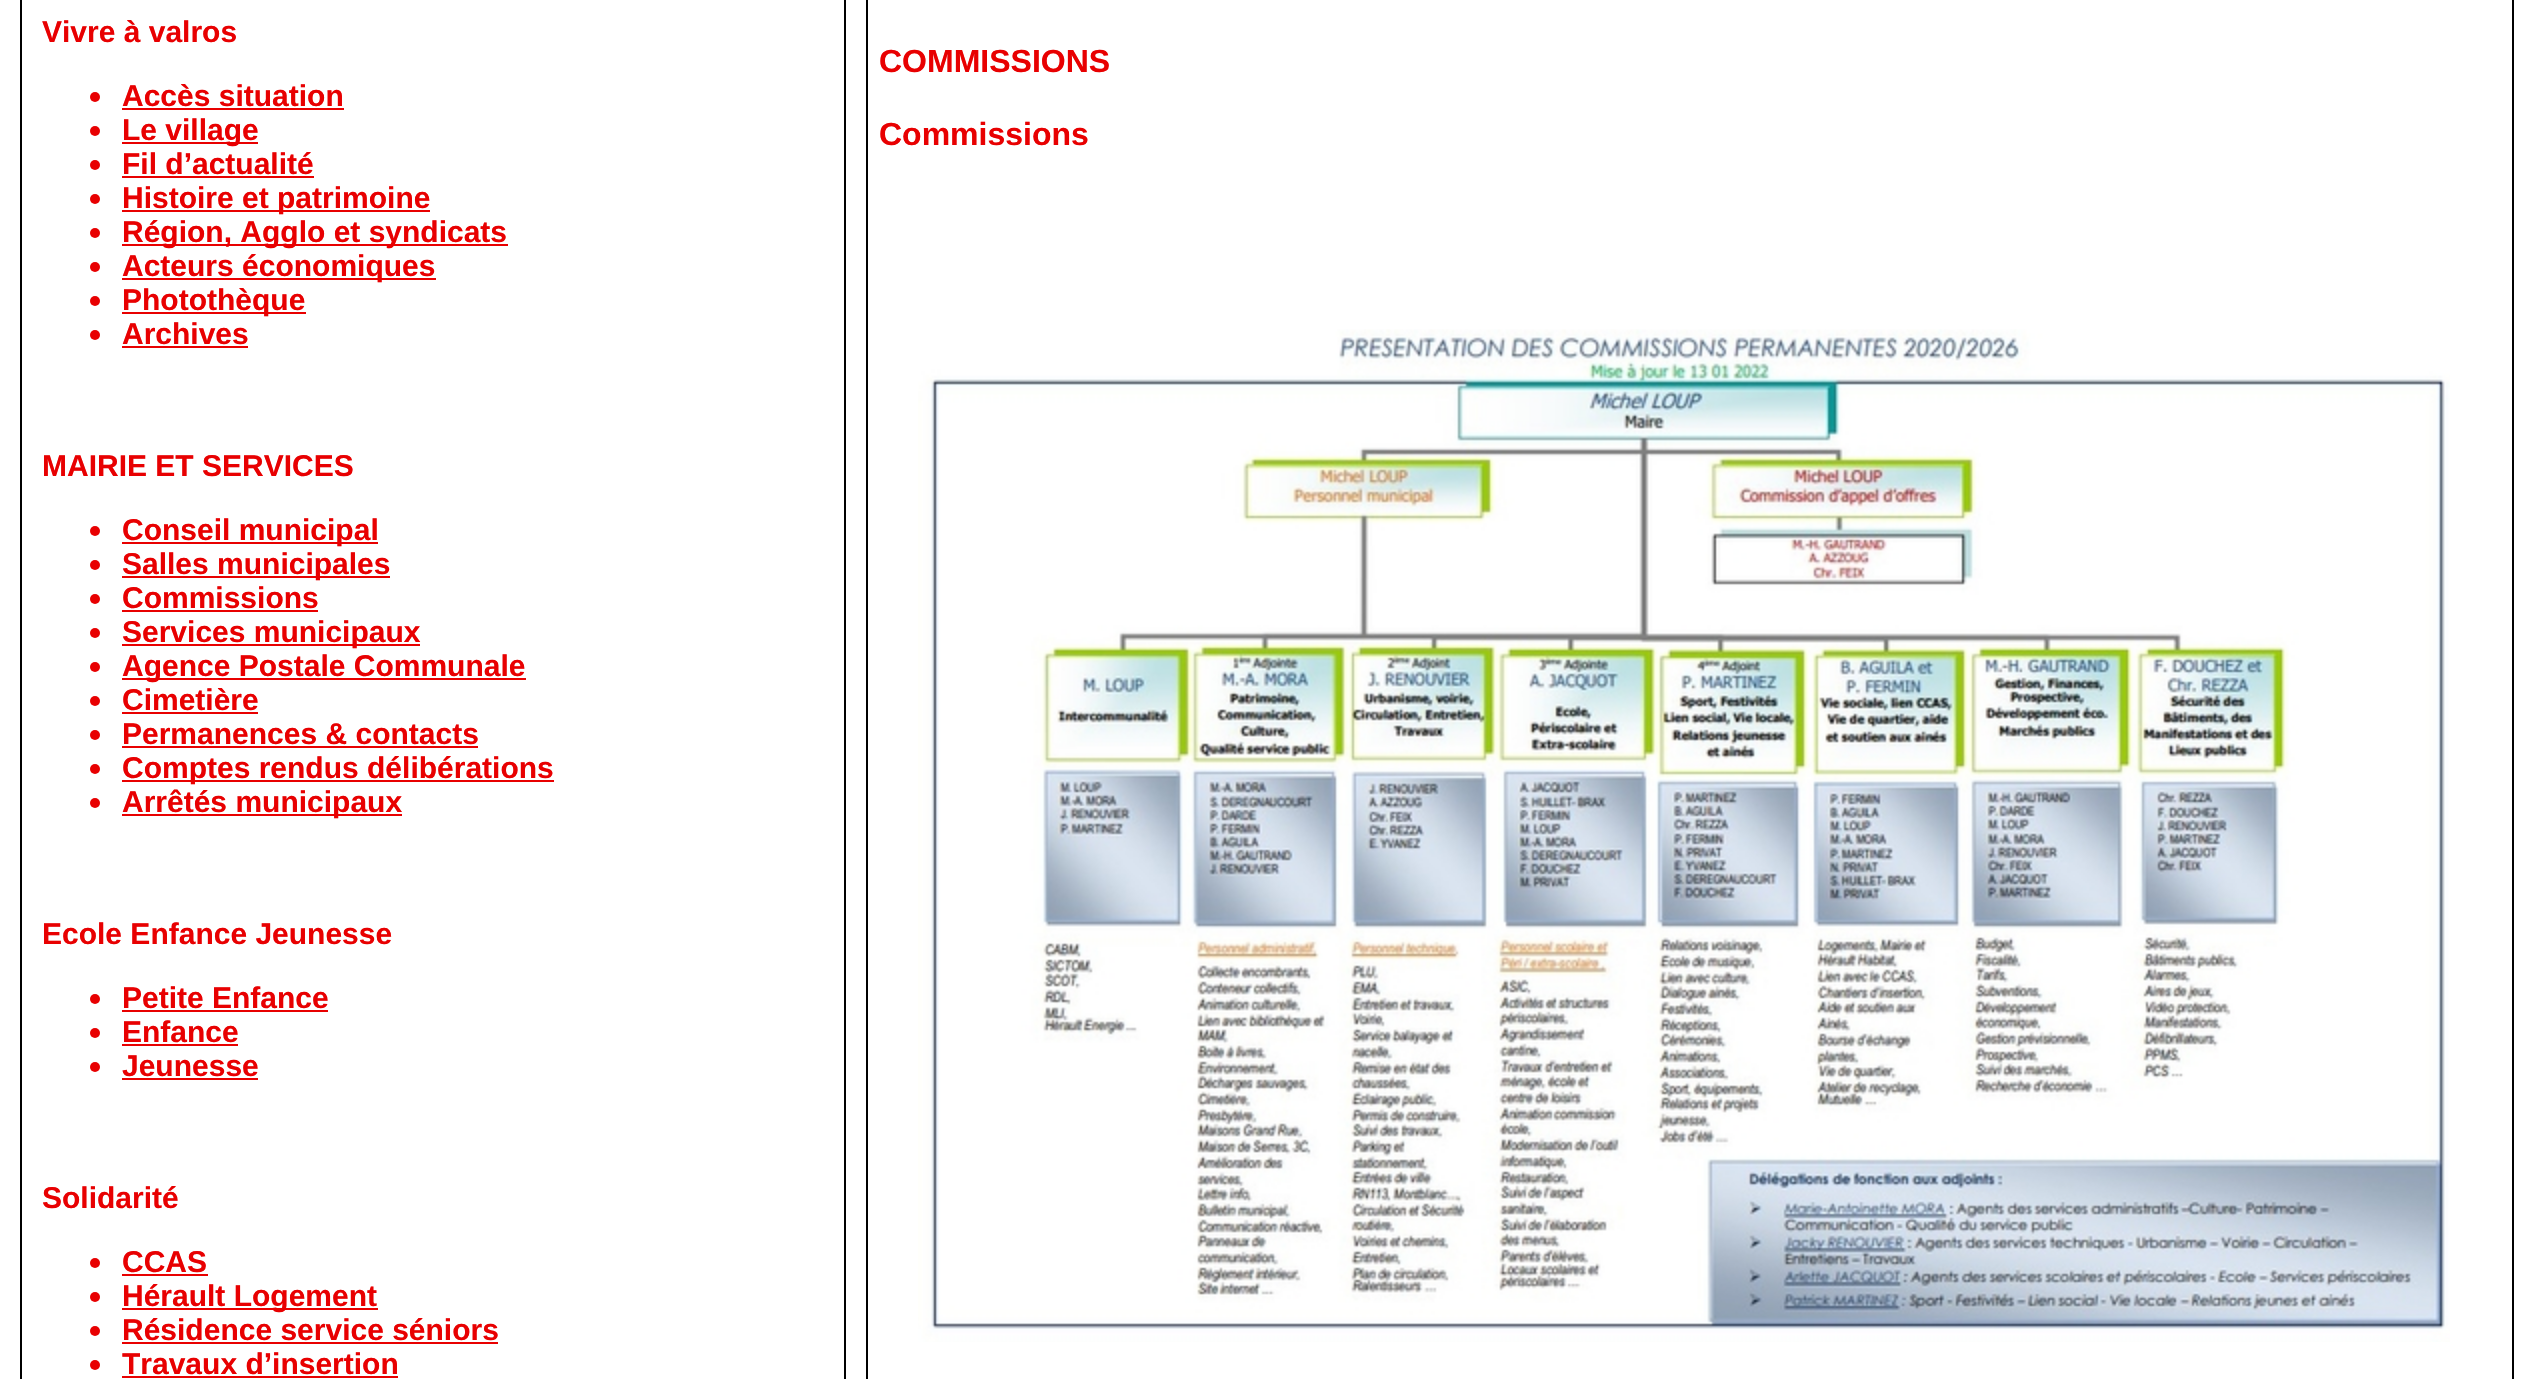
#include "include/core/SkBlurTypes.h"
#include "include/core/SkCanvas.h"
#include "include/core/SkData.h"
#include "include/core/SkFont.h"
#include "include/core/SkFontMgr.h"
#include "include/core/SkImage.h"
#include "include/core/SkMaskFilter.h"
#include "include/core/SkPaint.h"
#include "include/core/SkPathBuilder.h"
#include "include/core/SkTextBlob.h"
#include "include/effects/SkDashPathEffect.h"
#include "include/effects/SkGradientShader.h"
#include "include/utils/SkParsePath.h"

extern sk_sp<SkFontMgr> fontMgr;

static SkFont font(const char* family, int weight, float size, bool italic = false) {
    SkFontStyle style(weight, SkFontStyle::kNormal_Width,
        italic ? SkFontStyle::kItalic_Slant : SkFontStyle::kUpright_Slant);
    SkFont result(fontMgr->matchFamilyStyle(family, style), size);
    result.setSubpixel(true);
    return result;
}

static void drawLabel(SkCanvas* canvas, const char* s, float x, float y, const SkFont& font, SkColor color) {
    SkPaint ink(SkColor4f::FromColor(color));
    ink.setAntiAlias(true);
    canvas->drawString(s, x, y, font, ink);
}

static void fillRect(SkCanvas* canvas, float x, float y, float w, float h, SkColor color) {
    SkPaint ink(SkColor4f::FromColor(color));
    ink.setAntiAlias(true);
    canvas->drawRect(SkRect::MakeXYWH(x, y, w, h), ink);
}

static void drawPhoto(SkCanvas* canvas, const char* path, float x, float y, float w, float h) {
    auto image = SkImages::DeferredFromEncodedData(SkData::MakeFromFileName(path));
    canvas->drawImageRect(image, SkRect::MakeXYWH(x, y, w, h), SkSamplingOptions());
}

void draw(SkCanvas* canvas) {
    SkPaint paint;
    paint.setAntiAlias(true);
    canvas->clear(0xFFFFFFFF);
    paint.setStroke(true);
    paint.setStrokeWidth(2);
    paint.setColor(0xFF000000);
    canvas->drawRect(SkRect::MakeXYWH(21, -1, 824, 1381), paint);
    SkFont font1 = font("Liberation Sans", 700, 30);
    drawLabel(canvas, "Vivre à valros", 42, 42, font1, 0xFFE80001);
    paint.setStroke(false);
    paint.setColor(0xFFE80001);
    canvas->drawCircle(95, 97, 5, paint);
    drawLabel(canvas, "Accès situation", 122, 106, font1, 0xFFE80001);
    fillRect(canvas, 122, 108, 222, 2, 0xFFE80000);
    canvas->drawCircle(95, 131, 5, paint);
    fillRect(canvas, 122, 142, 136, 2, 0xFFE80000);
    drawLabel(canvas, "Le village", 122, 140, font1, 0xFFE80001);
    canvas->drawCircle(95, 165, 5, paint);
    drawLabel(canvas, "Fil d’actualité", 122, 174, font1, 0xFFE80001);
    fillRect(canvas, 122, 176, 192, 2, 0xFFE80000);
    canvas->drawCircle(95, 199, 5, paint);
    fillRect(canvas, 122, 210, 308, 2, 0xFFE80000);
    drawLabel(canvas, "Histoire et patrimoine", 122, 208, font1, 0xFFE80001);
    canvas->drawCircle(95, 233, 5, paint);
    fillRect(canvas, 122, 244, 386, 2, 0xFFE80000);
    drawLabel(canvas, "Région, Agglo et syndicats", 122, 242, font1, 0xFFE80001);
    canvas->drawCircle(95, 267, 5, paint);
    fillRect(canvas, 122, 278, 314, 2, 0xFFE80000);
    drawLabel(canvas, "Acteurs économiques", 122, 276, font1, 0xFFE80001);
    canvas->drawCircle(95, 301, 5, paint);
    fillRect(canvas, 122, 312, 184, 2, 0xFFE80000);
    drawLabel(canvas, "Photothèque", 122, 310, font1, 0xFFE80001);
    canvas->drawCircle(95, 335, 5, paint);
    drawLabel(canvas, "Archives", 122, 344, font1, 0xFFE80001);
    fillRect(canvas, 122, 346, 126, 2, 0xFFE80000);
    drawLabel(canvas, "MAIRIE ET SERVICES", 42, 476, font1, 0xFFE80001);
    canvas->drawCircle(95, 531, 5, paint);
    fillRect(canvas, 122, 542, 256, 2, 0xFFE80000);
    drawLabel(canvas, "Conseil municipal", 122, 540, font1, 0xFFE80001);
    canvas->drawCircle(95, 565, 5, paint);
    fillRect(canvas, 122, 576, 268, 2, 0xFFE80000);
    drawLabel(canvas, "Salles municipales", 122, 574, font1, 0xFFE80001);
    canvas->drawCircle(95, 599, 5, paint);
    drawLabel(canvas, "Commissions", 122, 608, font1, 0xFFE80001);
    fillRect(canvas, 122, 610, 196, 2, 0xFFE80000);
    canvas->drawCircle(95, 633, 5, paint);
    fillRect(canvas, 122, 644, 298, 2, 0xFFE80000);
    drawLabel(canvas, "Services municipaux", 122, 642, font1, 0xFFE80001);
    canvas->drawCircle(95, 667, 5, paint);
    fillRect(canvas, 122, 678, 404, 2, 0xFFE80000);
    drawLabel(canvas, "Agence Postale Communale", 122, 676, font1, 0xFFE80001);
    canvas->drawCircle(95, 701, 5, paint);
    drawLabel(canvas, "Cimetière", 122, 710, font1, 0xFFE80001);
    fillRect(canvas, 122, 712, 136, 2, 0xFFE80000);
    canvas->drawCircle(95, 735, 5, paint);
    drawLabel(canvas, "Permanences & contacts", 122, 744, font1, 0xFFE80001);
    fillRect(canvas, 122, 746, 356, 2, 0xFFE80000);
    canvas->drawCircle(95, 769, 5, paint);
    fillRect(canvas, 122, 780, 432, 2, 0xFFE80000);
    drawLabel(canvas, "Comptes rendus délibérations", 122, 778, font1, 0xFFE80001);
    canvas->drawCircle(95, 803, 5, paint);
    fillRect(canvas, 122, 814, 280, 2, 0xFFE80000);
    drawLabel(canvas, "Arrêtés municipaux", 122, 812, font1, 0xFFE80001);
    drawLabel(canvas, "Ecole Enfance Jeunesse", 42, 944, font1, 0xFFE80001);
    canvas->drawCircle(95, 999, 5, paint);
    drawLabel(canvas, "Petite Enfance", 122, 1008, font1, 0xFFE80001);
    fillRect(canvas, 122, 1010, 206, 2, 0xFFE80000);
    canvas->drawCircle(95, 1033, 5, paint);
    drawLabel(canvas, "Enfance", 122, 1042, font1, 0xFFE80001);
    fillRect(canvas, 122, 1044, 116, 2, 0xFFE80000);
    canvas->drawCircle(95, 1067, 5, paint);
    drawLabel(canvas, "Jeunesse", 122, 1076, font1, 0xFFE80001);
    fillRect(canvas, 122, 1078, 136, 2, 0xFFE80000);
    drawLabel(canvas, "Solidarité", 42, 1208, font1, 0xFFE80001);
    canvas->drawCircle(95, 1263, 5, paint);
    drawLabel(canvas, "CCAS", 122, 1272, font1, 0xFFE80001);
    fillRect(canvas, 122, 1274, 86, 2, 0xFFE80000);
    canvas->drawCircle(95, 1297, 5, paint);
    fillRect(canvas, 122, 1308, 256, 2, 0xFFE80000);
    drawLabel(canvas, "Hérault Logement", 122, 1306, font1, 0xFFE80001);
    canvas->drawCircle(95, 1331, 5, paint);
    drawLabel(canvas, "Résidence service séniors", 122, 1340, font1, 0xFFE80001);
    fillRect(canvas, 122, 1342, 376, 2, 0xFFE80000);
    canvas->drawCircle(95, 1365, 5, paint);
    drawLabel(canvas, "Travaux d’insertion", 122, 1374, font1, 0xFFE80001);
    fillRect(canvas, 122, 1376, 276, 2, 0xFFE80000);
    paint.setStroke(true);
    paint.setColor(0xFF000000);
    canvas->drawRect(SkRect::MakeXYWH(867, -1, 1646, 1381), paint);
    SkFont font2 = font("Liberation Sans", 700, 32);
    drawLabel(canvas, "COMMISSIONS", 879, 72, font2, 0xFFE80001);
    drawLabel(canvas, "Commissions", 879, 145, font2, 0xFFE80001);
    drawPhoto(canvas, "assets/img1.png", 918, 329, 1532, 1013);
}
